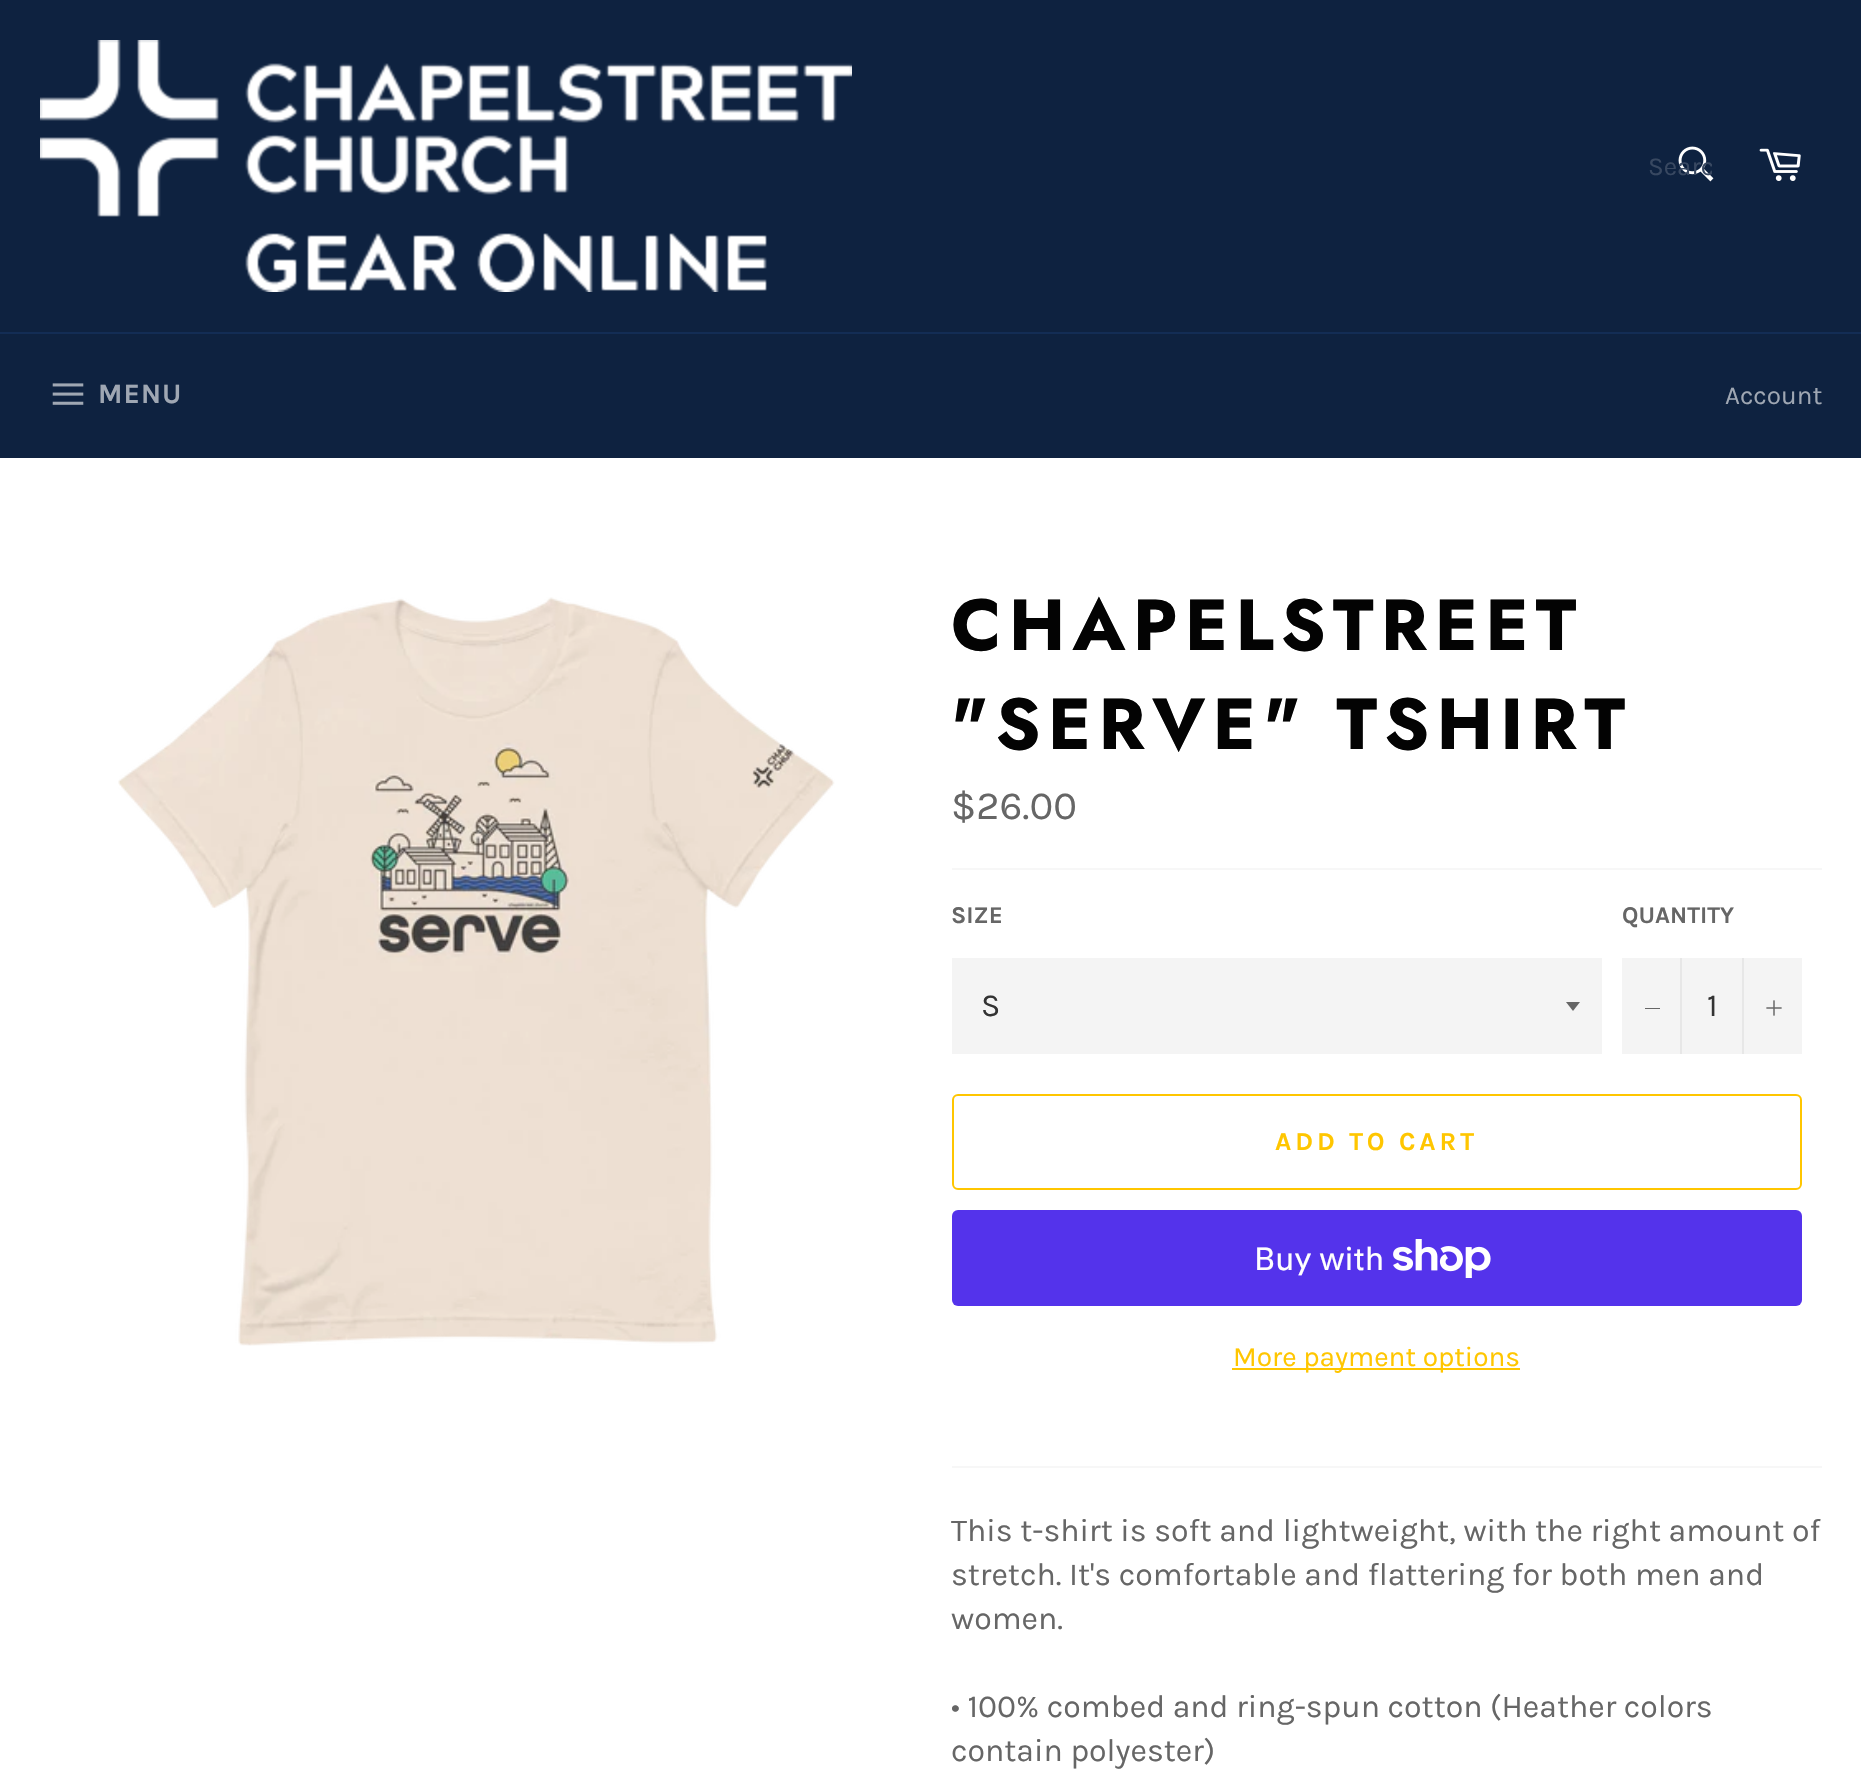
#include "include/core/SkBlurTypes.h"
#include "include/core/SkCanvas.h"
#include "include/core/SkData.h"
#include "include/core/SkFont.h"
#include "include/core/SkFontMgr.h"
#include "include/core/SkImage.h"
#include "include/core/SkMaskFilter.h"
#include "include/core/SkPaint.h"
#include "include/core/SkPathBuilder.h"
#include "include/core/SkTextBlob.h"
#include "include/effects/SkDashPathEffect.h"
#include "include/effects/SkGradientShader.h"
#include "include/utils/SkParsePath.h"

extern sk_sp<SkFontMgr> fontMgr;

static SkFont font(const char* family, int weight, float size, bool italic = false) {
    SkFontStyle style(weight, SkFontStyle::kNormal_Width,
        italic ? SkFontStyle::kItalic_Slant : SkFontStyle::kUpright_Slant);
    SkFont result(fontMgr->matchFamilyStyle(family, style), size);
    result.setSubpixel(true);
    return result;
}

static void drawLabel(SkCanvas* canvas, const char* s, float x, float y, const SkFont& font, SkColor color) {
    SkPaint ink(SkColor4f::FromColor(color));
    ink.setAntiAlias(true);
    canvas->drawString(s, x, y, font, ink);
}

static void drawTracked(SkCanvas* canvas, const char* s, float x, float y, const SkFont& font, const SkPaint& ink, float letter, float word) {
    std::vector<SkGlyphID> glyphs(font.countText(s, strlen(s), SkTextEncoding::kUTF8));
    std::vector<float> xs(glyphs.size());
    font.textToGlyphs(s, strlen(s), SkTextEncoding::kUTF8, glyphs);
    font.getXPos(glyphs, xs, x);
    float extra = 0;
    for (size_t i = 0; i < glyphs.size(); i++) {
        xs[i] += extra;
        extra += letter + word * (glyphs[i] == font.unicharToGlyph(' '));
    }
    canvas->drawTextBlob(SkTextBlob::MakeFromPosHGlyphs(glyphs, xs, y, font), 0, 0, ink);
}

static void fillRect(SkCanvas* canvas, float x, float y, float w, float h, SkColor color) {
    SkPaint ink(SkColor4f::FromColor(color));
    ink.setAntiAlias(true);
    canvas->drawRect(SkRect::MakeXYWH(x, y, w, h), ink);
}

static void fillRRect(SkCanvas* canvas, float x, float y, float w, float h, float radius, SkColor color) {
    SkPaint ink(SkColor4f::FromColor(color));
    ink.setAntiAlias(true);
    canvas->drawRoundRect(SkRect::MakeXYWH(x, y, w, h), radius, radius, ink);
}

static void drawPhoto(SkCanvas* canvas, const char* path, float x, float y, float w, float h) {
    auto image = SkImages::DeferredFromEncodedData(SkData::MakeFromFileName(path));
    canvas->drawImageRect(image, SkRect::MakeXYWH(x, y, w, h), SkSamplingOptions());
}

static SkPath parsePath(const char* data, bool evenOdd = false) {
    SkPath result = *SkParsePath::FromSVGString(data);
    if (evenOdd) result.setFillType(SkPathFillType::kEvenOdd);
    return result;
}

void draw(SkCanvas* canvas) {
    SkPaint paint;
    paint.setAntiAlias(true);
    canvas->clear(0xFF0E2240);
    drawPhoto(canvas, "assets/img1.png", 40, 40, 812, 252);
    drawPhoto(canvas, "assets/img2.png", 1678, 146, 36, 36);
    canvas->save();
    canvas->clipRect(SkRect::MakeXYWH(1648, 152, 64, 30));
    SkFont font1 = font("Karla", 400, 26);
    drawLabel(canvas, "Searc", 1648, 175, font1, 0xFF384861);
    canvas->restore();
    drawPhoto(canvas, "assets/img3.png", 1759, 148, 42, 33);
    fillRect(canvas, 0, 332, 1861, 2, 0xFF132D55);
    drawPhoto(canvas, "assets/img4.png", 52, 383, 32, 22);
    SkFont font2 = font("Karla", 700, 28);
    paint.setColor(0xFF9FA7B3);
    drawTracked(canvas, "MENU", 98, 403, font2, paint, 1, 0);
    drawLabel(canvas, "Account", 1725, 404, font1, 0xFF9FA7B3);
    fillRect(canvas, 0, 458, 1861, 1332, 0xFFFFFFFF);
    drawPhoto(canvas, "assets/img5.png", 118, 597, 717, 749);
    SkFont font3 = font("Jost", 700, 72);
    paint.setColor(0xFF030303);
    drawTracked(canvas, "CHAPELSTREET", 951, 650, font3, paint, 7.25f, 0);
    drawTracked(canvas, "\"SERVE\" TSHIRT", 951, 749, font3, paint, 7.25f, 0);
    SkFont font4 = font("Karla", 400, 40);
    drawLabel(canvas, "$26.00", 951, 819, font4, 0xFF666666);
    fillRect(canvas, 952, 868, 870, 2, 0xFFF7F7F7);
    SkFont font5 = font("Karla", 700, 24);
    drawLabel(canvas, "SIZE", 951, 923, font5, 0xFF666666);
    fillRect(canvas, 952, 958, 650, 96, 0xFFF4F4F4);
    paint.setColor(0xFF666666);
    canvas->drawPath(parsePath("M1566 1002L1573 1011L1580 1002Z"), paint);
    SkFont font6 = font("Karla", 400, 32);
    drawLabel(canvas, "S", 981, 1016, font6, 0xFF333333);
    drawLabel(canvas, "QUANTITY", 1622, 923, font5, 0xFF666666);
    fillRect(canvas, 1622, 958, 180, 96, 0xFFF4F4F4);
    fillRect(canvas, 1680, 958, 2, 96, 0xFFE7E7E7);
    fillRect(canvas, 1645, 1008, 15, 1, 0xFF666666);
    drawLabel(canvas, "1", 1707, 1016, font6, 0xFF333333);
    fillRect(canvas, 1742, 958, 2, 96, 0xFFE7E7E7);
    drawPhoto(canvas, "assets/img6.png", 1766, 1000, 16, 16);
    paint.setStroke(true);
    paint.setStrokeWidth(2);
    paint.setColor(0xFFFFC600);
    canvas->drawRoundRect(SkRect::MakeXYWH(953, 1095, 848, 94), 5, 5, paint);
    SkFont font7 = font("Karla", 700, 26);
    paint.setStroke(false);
    drawTracked(canvas, "ADD TO CART", 1275, 1150, font7, paint, 3.9f, 0);
    fillRRect(canvas, 952, 1210, 850, 96, 6, 0xFF5433EB);
    SkFont font8 = font("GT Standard", 400, 32);
    drawLabel(canvas, "Buy with", 1254, 1270, font8, 0xFFFFFFFF);
    drawPhoto(canvas, "assets/img7.png", 1393, 1239, 98, 39);
    fillRect(canvas, 1232, 1368, 288, 2, 0xFFFFC600);
    SkFont font9 = font("Karla", 400, 28);
    drawLabel(canvas, "More payment options", 1233, 1366, font9, 0xFFFFC600);
    fillRect(canvas, 952, 1466, 870, 2, 0xFFF7F7F7);
    drawLabel(canvas, "This t-shirt is soft and lightweight, with the right amount of", 951, 1541, font6, 0xFF666666);
    drawLabel(canvas, "stretch. It's comfortable and flattering for both men and", 951, 1585, font6, 0xFF666666);
    drawLabel(canvas, "women.", 951, 1629, font6, 0xFF666666);
    drawLabel(canvas, "• 100% combed and ring-spun cotton (Heather colors", 951, 1717, font6, 0xFF666666);
    drawLabel(canvas, "contain polyester)", 951, 1761, font6, 0xFF666666);
}
